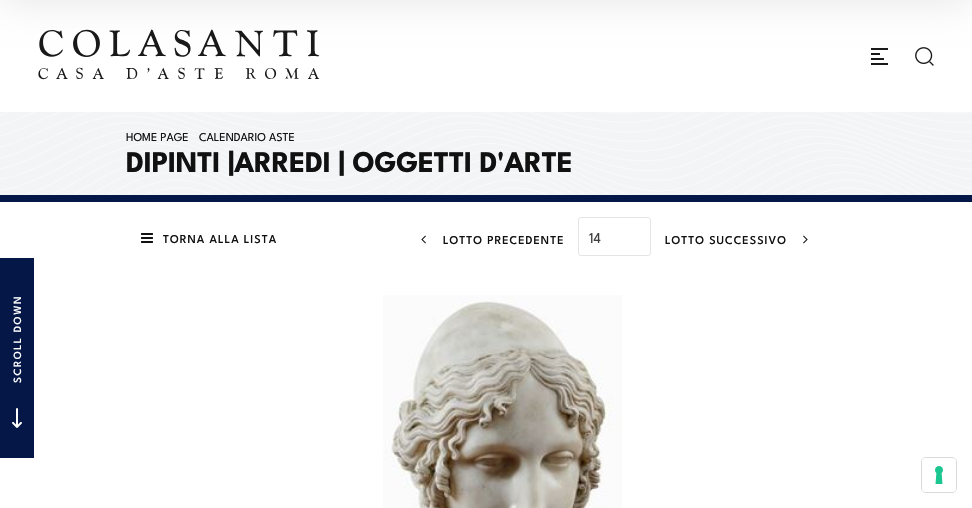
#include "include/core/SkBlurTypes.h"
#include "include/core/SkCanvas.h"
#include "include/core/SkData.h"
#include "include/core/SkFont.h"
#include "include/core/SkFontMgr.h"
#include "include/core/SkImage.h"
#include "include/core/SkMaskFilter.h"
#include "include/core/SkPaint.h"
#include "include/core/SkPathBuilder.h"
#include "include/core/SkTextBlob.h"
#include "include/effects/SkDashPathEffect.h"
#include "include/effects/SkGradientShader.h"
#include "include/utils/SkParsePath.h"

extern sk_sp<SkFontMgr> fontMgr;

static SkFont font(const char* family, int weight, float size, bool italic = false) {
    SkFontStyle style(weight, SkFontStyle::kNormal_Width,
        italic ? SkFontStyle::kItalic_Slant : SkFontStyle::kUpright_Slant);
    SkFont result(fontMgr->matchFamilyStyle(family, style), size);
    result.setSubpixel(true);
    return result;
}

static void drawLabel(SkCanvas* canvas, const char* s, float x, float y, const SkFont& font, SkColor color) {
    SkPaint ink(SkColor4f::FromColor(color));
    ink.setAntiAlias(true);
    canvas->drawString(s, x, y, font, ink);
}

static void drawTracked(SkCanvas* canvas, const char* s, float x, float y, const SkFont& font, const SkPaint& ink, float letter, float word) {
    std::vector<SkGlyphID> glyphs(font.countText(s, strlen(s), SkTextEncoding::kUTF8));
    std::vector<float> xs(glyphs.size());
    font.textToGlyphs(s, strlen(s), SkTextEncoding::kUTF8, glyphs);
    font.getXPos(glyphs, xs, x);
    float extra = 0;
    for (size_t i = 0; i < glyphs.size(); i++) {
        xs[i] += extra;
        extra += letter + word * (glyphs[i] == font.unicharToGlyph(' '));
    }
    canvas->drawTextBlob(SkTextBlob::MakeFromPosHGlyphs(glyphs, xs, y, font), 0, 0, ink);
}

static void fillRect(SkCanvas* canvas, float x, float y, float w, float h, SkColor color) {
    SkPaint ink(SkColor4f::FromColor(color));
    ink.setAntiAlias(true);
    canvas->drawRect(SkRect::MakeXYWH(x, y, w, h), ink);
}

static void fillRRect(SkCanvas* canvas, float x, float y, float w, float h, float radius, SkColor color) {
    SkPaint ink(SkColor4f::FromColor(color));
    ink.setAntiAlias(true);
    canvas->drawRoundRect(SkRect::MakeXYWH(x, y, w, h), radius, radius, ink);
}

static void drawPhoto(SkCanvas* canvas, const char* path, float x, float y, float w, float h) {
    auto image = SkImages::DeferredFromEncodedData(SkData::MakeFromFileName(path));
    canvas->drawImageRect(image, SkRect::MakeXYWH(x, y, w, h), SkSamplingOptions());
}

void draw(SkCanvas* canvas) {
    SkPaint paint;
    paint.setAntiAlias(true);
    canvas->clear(0xFFFFFFFF);
    drawPhoto(canvas, "assets/img1.png", 38, 29, 282, 51);
    drawPhoto(canvas, "assets/img2.png", 871, 48, 17, 17);
    drawPhoto(canvas, "assets/img3.png", 915, 47, 19, 19);
    paint.setColor(0x1A000000);
    paint.setMaskFilter(SkMaskFilter::MakeBlur(kNormal_SkBlurStyle, 20));
    canvas->drawRect(SkRect::MakeXYWH(0, -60, 972, 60), paint);
    paint.setMaskFilter(nullptr);
    fillRect(canvas, 0, 112, 972, 83, 0xFFF3F4F6);
    drawPhoto(canvas, "assets/img4.png", 0, 112, 972, 83);
    SkFont font1 = font("League Spartan", 400, 12);
    drawLabel(canvas, "HOME PAGE", 126, 141, font1, 0xFF111111);
    drawLabel(canvas, "CALENDARIO ASTE", 199, 141, font1, 0xFF111111);
    SkFont font2 = font("League Spartan", 700, 30);
    paint.setColor(0xFF111111);
    drawTracked(canvas, "DIPINTI |ARREDI | OGGETTI D'ARTE", 126, 172, font2, paint, -0.25f, 0);
    fillRect(canvas, 0, 195, 972, 7, 0xFF051747);
    drawPhoto(canvas, "assets/img5.png", 141, 233, 12, 10);
    SkFont font3 = font("League Spartan", 500, 12);
    drawTracked(canvas, "TORNA ALLA LISTA", 163, 243, font3, paint, 1, 0);
    drawPhoto(canvas, "assets/img6.png", 421, 235, 5, 9);
    drawTracked(canvas, "LOTTO PRECEDENTE", 443, 244, font3, paint, 1, 0);
    paint.setStroke(true);
    paint.setStrokeWidth(1);
    paint.setColor(0xFFE5E5E5);
    canvas->drawRoundRect(SkRect::MakeXYWH(578.5f, 217.5f, 72, 38), 2.5f, 2.5f, paint);
    SkFont font4 = font("League Spartan", 400, 15);
    drawLabel(canvas, "14", 589, 243, font4, 0xFF404040);
    paint.setStroke(false);
    paint.setColor(0xFF111111);
    drawTracked(canvas, "LOTTO SUCCESSIVO", 665, 244, font3, paint, 1, 0);
    drawPhoto(canvas, "assets/img7.png", 803, 235, 5, 9);
    drawPhoto(canvas, "assets/img8.png", 383, 295, 239, 213);
    fillRect(canvas, 0, 258, 34, 200, 0xFF051747);
    SkFont font5 = font("League Spartan", 500, 11);
    paint.setColor(0xFFFFFFFF);
    canvas->save();
    canvas->rotate(-90, 21, 383);
    drawTracked(canvas, "SCROLL DOWN", 21, 383, font5, paint, 1.5f, 0);
    canvas->restore();
    drawPhoto(canvas, "assets/img9.png", 12, 408, 10, 20);
    paint.setStroke(true);
    paint.setColor(0xFFD9D9D9);
    canvas->drawRoundRect(SkRect::MakeXYWH(921.5f, 457.5f, 35, 35), 4.5f, 4.5f, paint);
    fillRRect(canvas, 922, 458, 34, 34, 4, 0xFFFFFFFF);
    drawPhoto(canvas, "assets/img10.png", 935, 466, 8, 18);
}
